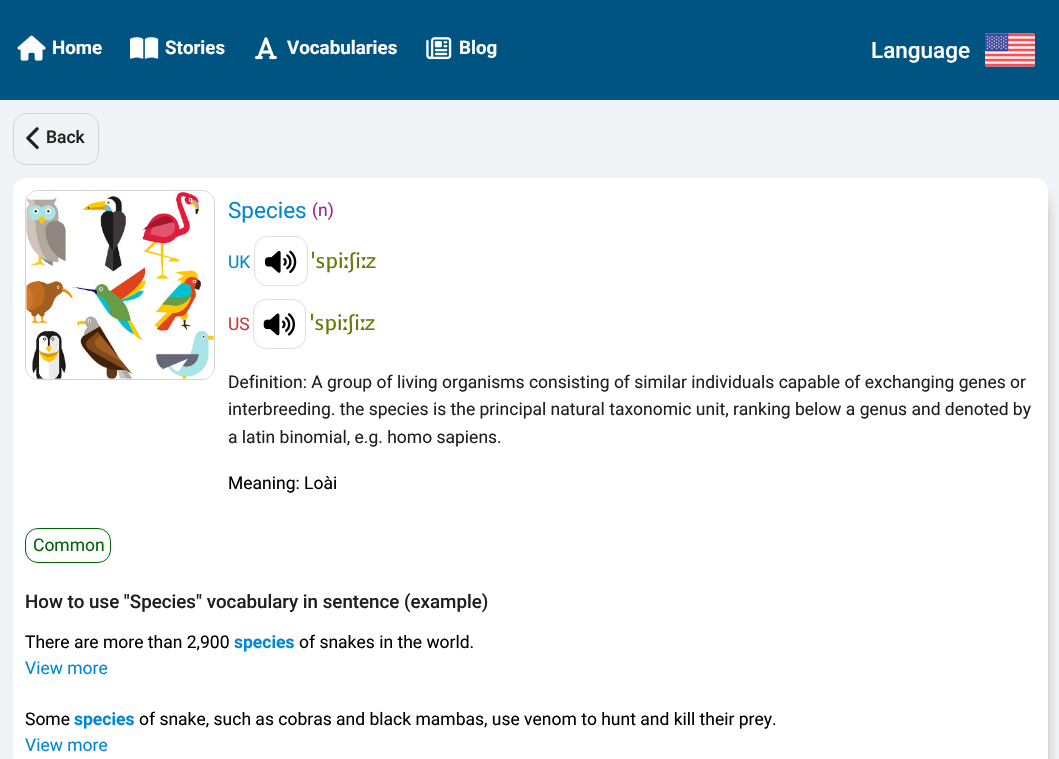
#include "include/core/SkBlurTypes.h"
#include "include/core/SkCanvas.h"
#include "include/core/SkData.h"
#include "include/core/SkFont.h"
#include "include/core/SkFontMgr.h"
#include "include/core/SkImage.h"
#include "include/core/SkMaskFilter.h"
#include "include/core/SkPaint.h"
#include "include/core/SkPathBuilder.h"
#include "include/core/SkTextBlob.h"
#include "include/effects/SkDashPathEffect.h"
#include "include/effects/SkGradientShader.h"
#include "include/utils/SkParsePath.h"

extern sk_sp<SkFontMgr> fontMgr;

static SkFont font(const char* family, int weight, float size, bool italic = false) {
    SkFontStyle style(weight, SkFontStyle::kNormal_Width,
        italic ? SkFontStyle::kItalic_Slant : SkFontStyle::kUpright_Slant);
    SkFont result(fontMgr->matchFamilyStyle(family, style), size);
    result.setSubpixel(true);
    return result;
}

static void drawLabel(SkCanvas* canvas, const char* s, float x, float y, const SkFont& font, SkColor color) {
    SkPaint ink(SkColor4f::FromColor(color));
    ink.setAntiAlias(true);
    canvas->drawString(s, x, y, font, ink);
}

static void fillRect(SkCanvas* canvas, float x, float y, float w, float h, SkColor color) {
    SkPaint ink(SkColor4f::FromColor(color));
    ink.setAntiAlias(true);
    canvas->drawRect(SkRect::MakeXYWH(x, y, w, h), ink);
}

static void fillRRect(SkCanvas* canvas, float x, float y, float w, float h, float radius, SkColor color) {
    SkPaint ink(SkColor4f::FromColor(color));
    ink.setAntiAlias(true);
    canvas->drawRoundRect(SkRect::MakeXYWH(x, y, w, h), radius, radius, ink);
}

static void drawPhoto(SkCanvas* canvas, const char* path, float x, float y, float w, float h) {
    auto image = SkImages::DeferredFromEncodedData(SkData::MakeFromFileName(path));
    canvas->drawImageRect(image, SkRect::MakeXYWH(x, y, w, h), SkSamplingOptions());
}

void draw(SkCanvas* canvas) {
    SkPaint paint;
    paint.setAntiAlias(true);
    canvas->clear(0xFFF0F2F5);
    fillRect(canvas, 0, 0, 1059, 100, 0xFF005482);
    drawPhoto(canvas, "assets/img1.png", 17, 35, 29, 26);
    SkFont font1 = font("Roboto", 700, 18.75f);
    drawLabel(canvas, "Home", 52, 54, font1, 0xFFFFFFFF);
    drawPhoto(canvas, "assets/img2.png", 130, 37, 29, 22);
    drawLabel(canvas, "Stories", 165, 54, font1, 0xFFFFFFFF);
    drawPhoto(canvas, "assets/img3.png", 255, 37, 22, 23);
    drawLabel(canvas, "Vocabularies", 287, 54, font1, 0xFFFFFFFF);
    drawPhoto(canvas, "assets/img4.png", 426, 37, 26, 23);
    drawLabel(canvas, "Blog", 459, 54, font1, 0xFFFFFFFF);
    SkFont font2 = font("Roboto", 500, 22.5f);
    drawLabel(canvas, "Language", 871, 58, font2, 0xFFFFFFFF);
    drawPhoto(canvas, "assets/img5.png", 985, 33, 50, 34);
    paint.setStroke(true);
    paint.setStrokeWidth(1);
    paint.setColor(0xFFD3D3D3);
    canvas->drawRoundRect(SkRect::MakeXYWH(13.5f, 113.5f, 85, 51), 12.5f, 12.5f, paint);
    drawPhoto(canvas, "assets/img6.png", 26, 127, 13, 22);
    SkFont font3 = font("Roboto", 500, 17.5f);
    drawLabel(canvas, "Back", 46, 143, font3, 0xFF1F1F20);
    paint.setStroke(false);
    paint.setColor(0x4D000000);
    paint.setMaskFilter(SkMaskFilter::MakeBlur(kNormal_SkBlurStyle, 6));
    canvas->drawRect(SkRect::MakeXYWH(36, 201, 1010, 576), paint);
    paint.setMaskFilter(nullptr);
    fillRRect(canvas, 13, 178, 1035, 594, 13, 0xFFFFFFFF);
    paint.setStroke(true);
    paint.setColor(0xFFD3D3D3);
    canvas->drawRoundRect(SkRect::MakeXYWH(25.5f, 190.5f, 189, 189), 12.5f, 12.5f, paint);
    drawPhoto(canvas, "assets/img7.png", 26, 191, 188, 188);
    SkFont font4 = font("Roboto", 400, 22.5f);
    drawLabel(canvas, "Species", 228, 218, font4, 0xFF0288D1);
    SkFont font5 = font("Roboto", 400, 17.5f);
    drawLabel(canvas, "(n)", 312, 216, font5, 0xFF9C2584);
    drawLabel(canvas, "UK", 228, 268, font5, 0xFF0288D1);
    paint.setColor(0xFFE0E0E0);
    canvas->drawRoundRect(SkRect::MakeXYWH(254.5f, 236.5f, 53, 49), 12.5f, 12.5f, paint);
    drawPhoto(canvas, "assets/img8.png", 265, 250, 32, 23);
    canvas->save();
    canvas->clipRect(SkRect::MakeXYWH(311, 248, 65, 27));
    SkFont font6 = font("Voces", 400, 21);
    drawLabel(canvas, "ˈspiːʃiːz", 311, 268, font6, 0xFF647C0C);
    canvas->restore();
    drawLabel(canvas, "US", 228, 330, font5, 0xFFC73A3A);
    canvas->drawRoundRect(SkRect::MakeXYWH(253.5f, 299.5f, 52, 49), 12.5f, 12.5f, paint);
    drawPhoto(canvas, "assets/img9.png", 263, 313, 32, 23);
    drawLabel(canvas, "ˈspiːʃiːz", 310, 330, font6, 0xFF647C0C);
    drawLabel(canvas, "Definition: A group of living organisms consisting of similar individuals capable of exchanging genes or", 228, 388, font5, 0xFF1F1F20);
    drawLabel(canvas, "interbreeding. the species is the principal natural taxonomic unit, ranking below a genus and denoted by", 228, 415, font5, 0xFF1F1F20);
    drawLabel(canvas, "a latin binomial, e.g. homo sapiens.", 228, 443, font5, 0xFF1F1F20);
    drawLabel(canvas, "Meaning: Loài", 228, 489, font5, 0xFF000000);
    paint.setColor(0xFF006400);
    canvas->drawRoundRect(SkRect::MakeXYWH(25.5f, 528.5f, 85, 34), 12.5f, 12.5f, paint);
    drawLabel(canvas, "Common", 33, 551, font5, 0xFF006400);
    SkFont font7 = font("Roboto", 500, 18.75f);
    drawLabel(canvas, "How to use \"Species\" vocabulary in sentence (example)", 25, 608, font7, 0xFF1F1F20);
    drawLabel(canvas, "There are more than 2,900", 25, 648, font5, 0xFF000000);
    SkFont font8 = font("Roboto", 700, 17.5f);
    drawLabel(canvas, "species", 234, 648, font8, 0xFF0288D1);
    drawLabel(canvas, "of snakes in the world.", 299, 648, font5, 0xFF000000);
    drawLabel(canvas, "View more", 25, 674, font5, 0xFF0288D1);
    drawLabel(canvas, "Some", 25, 725, font5, 0xFF000000);
    drawLabel(canvas, "species", 74, 725, font8, 0xFF0288D1);
    drawLabel(canvas, "of snake, such as cobras and black mambas, use venom to hunt and kill their prey.", 139, 725, font5, 0xFF000000);
    drawLabel(canvas, "View more", 25, 751, font5, 0xFF0288D1);
}
